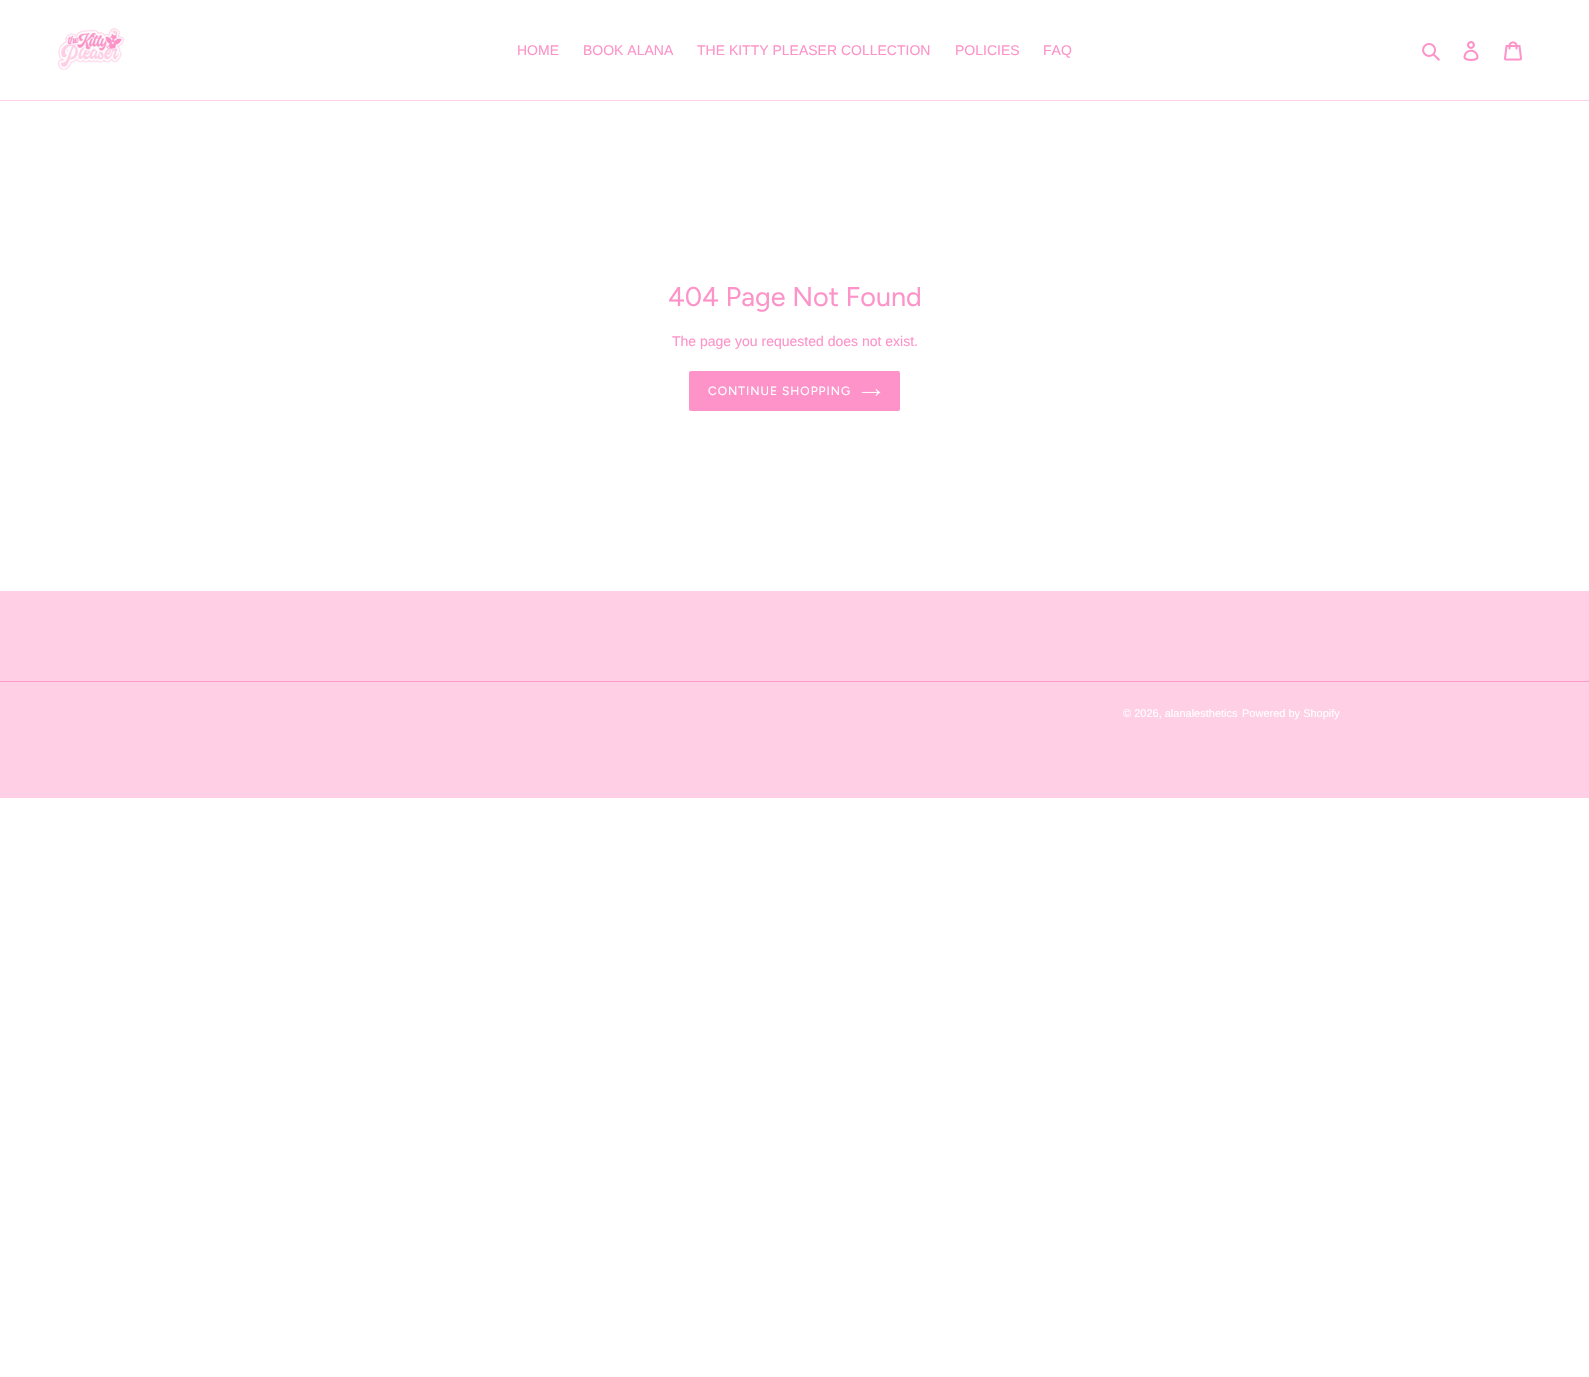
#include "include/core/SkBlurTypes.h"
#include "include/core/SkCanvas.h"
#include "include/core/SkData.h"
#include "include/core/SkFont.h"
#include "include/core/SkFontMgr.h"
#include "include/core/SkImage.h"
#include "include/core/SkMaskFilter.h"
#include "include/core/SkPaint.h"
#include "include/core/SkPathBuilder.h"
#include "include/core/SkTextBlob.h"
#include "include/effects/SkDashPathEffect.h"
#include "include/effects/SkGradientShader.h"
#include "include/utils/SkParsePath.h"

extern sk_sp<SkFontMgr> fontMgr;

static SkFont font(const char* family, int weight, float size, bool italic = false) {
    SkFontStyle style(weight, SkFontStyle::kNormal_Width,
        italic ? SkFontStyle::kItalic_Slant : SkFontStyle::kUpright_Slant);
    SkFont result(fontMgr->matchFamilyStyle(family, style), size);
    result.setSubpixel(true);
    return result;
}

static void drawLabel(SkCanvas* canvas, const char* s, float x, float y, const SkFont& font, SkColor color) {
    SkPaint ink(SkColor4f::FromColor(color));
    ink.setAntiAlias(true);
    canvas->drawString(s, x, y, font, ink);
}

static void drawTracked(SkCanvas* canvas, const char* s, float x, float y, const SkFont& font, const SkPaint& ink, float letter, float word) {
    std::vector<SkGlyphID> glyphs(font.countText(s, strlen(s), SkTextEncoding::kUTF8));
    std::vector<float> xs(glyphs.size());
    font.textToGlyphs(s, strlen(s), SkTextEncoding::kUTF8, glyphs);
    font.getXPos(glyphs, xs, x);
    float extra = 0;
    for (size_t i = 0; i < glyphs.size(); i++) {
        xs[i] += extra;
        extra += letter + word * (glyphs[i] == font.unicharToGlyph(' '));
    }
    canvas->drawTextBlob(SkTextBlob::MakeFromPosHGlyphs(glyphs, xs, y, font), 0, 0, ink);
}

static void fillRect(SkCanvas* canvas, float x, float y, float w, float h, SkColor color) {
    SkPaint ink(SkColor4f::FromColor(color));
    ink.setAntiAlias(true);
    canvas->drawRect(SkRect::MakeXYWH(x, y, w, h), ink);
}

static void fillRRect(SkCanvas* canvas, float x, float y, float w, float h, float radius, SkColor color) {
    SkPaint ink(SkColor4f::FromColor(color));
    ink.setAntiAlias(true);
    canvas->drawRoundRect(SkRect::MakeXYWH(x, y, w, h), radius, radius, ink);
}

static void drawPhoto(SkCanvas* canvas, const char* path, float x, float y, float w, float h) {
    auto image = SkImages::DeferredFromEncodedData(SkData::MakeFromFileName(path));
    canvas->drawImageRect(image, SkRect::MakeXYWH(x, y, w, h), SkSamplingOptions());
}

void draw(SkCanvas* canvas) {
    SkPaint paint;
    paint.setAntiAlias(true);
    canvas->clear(0xFFFFFFFF);
    fillRect(canvas, 0, 100, 1589, 1, 0xFFFFCFE5);
    drawPhoto(canvas, "assets/img1.png", 58, 28, 67, 42);
    SkFont font1 = font("Liberation Sans", 400, 14);
    drawLabel(canvas, "HOME", 517, 55, font1, 0xFFFD93C9);
    drawLabel(canvas, "BOOK ALANA", 583, 55, font1, 0xFFFD93C9);
    drawLabel(canvas, "THE KITTY PLEASER COLLECTION", 697, 55, font1, 0xFFFD93C9);
    drawLabel(canvas, "POLICIES", 955, 55, font1, 0xFFFD93C9);
    drawLabel(canvas, "FAQ", 1043, 55, font1, 0xFFFD93C9);
    drawPhoto(canvas, "assets/img2.png", 1422, 43, 18, 18);
    drawPhoto(canvas, "assets/img3.png", 1463, 41, 16, 20);
    drawPhoto(canvas, "assets/img4.png", 1504, 41, 18, 20);
    SkFont font2 = font("Figtree", 400, 27);
    drawLabel(canvas, "404 Page Not Found", 668, 306, font2, 0xFFFD93C9);
    drawLabel(canvas, "The page you requested does not exist.", 672, 346, font1, 0xFFFD93C9);
    fillRRect(canvas, 689, 371, 211, 40, 2, 0xFFFD93C9);
    SkFont font3 = font("Figtree", 400, 12);
    paint.setColor(0xFFFFFFFF);
    drawTracked(canvas, "CONTINUE SHOPPING", 708, 395, font3, paint, 1, 0);
    drawPhoto(canvas, "assets/img5.png", 861, 389, 20, 7);
    fillRect(canvas, 0, 591, 1589, 207, 0xFFFFCFE5);
    fillRect(canvas, 0, 681, 1589, 1, 0xFFFF9CC9);
    SkFont font4 = font("Liberation Sans", 400, 11);
    drawLabel(canvas, "© 2026, alanalesthetics", 1123, 717, font4, 0xFFFFFFFF);
    drawLabel(canvas, "Powered by Shopify", 1242, 717, font4, 0xFFFFFFFF);
}
